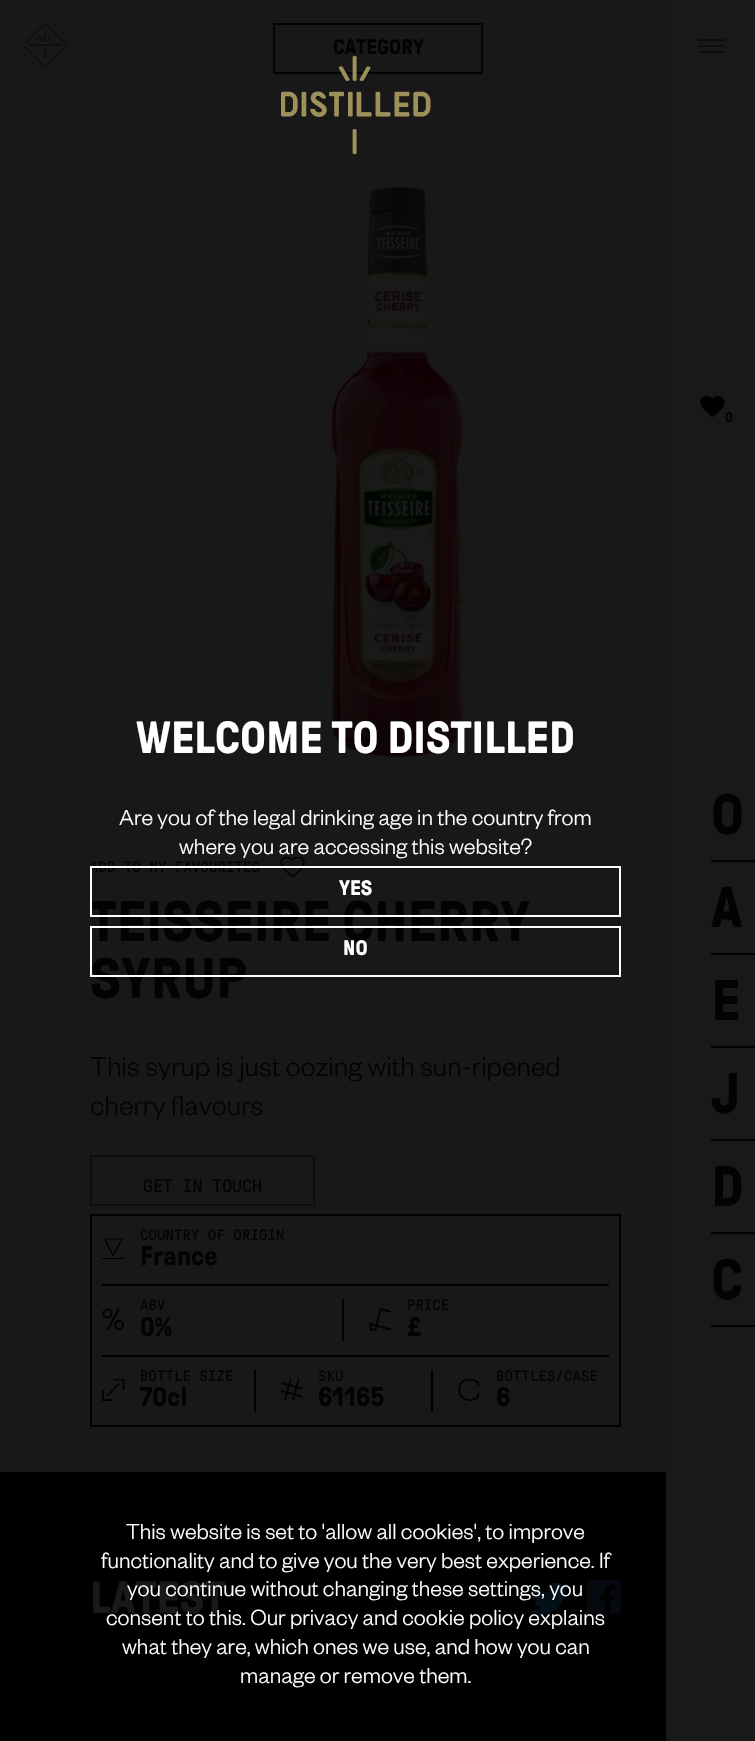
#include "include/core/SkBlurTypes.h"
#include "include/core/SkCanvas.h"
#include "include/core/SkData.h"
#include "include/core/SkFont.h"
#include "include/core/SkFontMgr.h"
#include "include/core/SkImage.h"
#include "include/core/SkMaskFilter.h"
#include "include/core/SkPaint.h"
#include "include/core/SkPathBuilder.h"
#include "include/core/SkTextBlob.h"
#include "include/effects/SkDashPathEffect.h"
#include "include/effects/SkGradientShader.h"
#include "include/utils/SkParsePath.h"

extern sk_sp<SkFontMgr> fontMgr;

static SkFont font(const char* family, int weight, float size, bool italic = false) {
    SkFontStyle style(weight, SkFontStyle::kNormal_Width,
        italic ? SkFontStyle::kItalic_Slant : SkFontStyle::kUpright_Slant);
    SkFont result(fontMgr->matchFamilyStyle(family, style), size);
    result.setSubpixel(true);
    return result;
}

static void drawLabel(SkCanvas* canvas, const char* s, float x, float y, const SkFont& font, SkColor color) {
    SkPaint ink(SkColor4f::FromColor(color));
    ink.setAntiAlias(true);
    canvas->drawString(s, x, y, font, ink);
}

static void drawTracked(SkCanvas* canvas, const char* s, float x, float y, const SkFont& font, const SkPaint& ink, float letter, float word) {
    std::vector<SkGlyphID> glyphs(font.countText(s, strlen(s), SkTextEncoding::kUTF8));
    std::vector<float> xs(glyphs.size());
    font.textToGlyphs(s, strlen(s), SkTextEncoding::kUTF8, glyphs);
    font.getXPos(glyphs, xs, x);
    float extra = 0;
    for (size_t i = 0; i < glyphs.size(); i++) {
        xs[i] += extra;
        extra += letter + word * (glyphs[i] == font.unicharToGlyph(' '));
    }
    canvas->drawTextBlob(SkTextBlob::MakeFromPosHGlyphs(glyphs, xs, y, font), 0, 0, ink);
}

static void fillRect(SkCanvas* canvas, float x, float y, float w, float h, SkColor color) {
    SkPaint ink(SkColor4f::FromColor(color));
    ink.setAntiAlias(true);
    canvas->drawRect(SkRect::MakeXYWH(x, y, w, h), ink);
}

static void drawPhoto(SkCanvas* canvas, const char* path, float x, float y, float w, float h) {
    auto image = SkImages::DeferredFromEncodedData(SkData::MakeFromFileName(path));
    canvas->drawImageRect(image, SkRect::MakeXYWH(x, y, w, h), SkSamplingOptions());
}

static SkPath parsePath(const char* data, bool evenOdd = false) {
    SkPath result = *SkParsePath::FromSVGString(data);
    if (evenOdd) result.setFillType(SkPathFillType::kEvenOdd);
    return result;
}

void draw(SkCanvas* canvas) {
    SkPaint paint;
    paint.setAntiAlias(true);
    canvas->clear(0xFF000000);
    fillRect(canvas, 0, 0, 666, 1472, 0xFF181818);
    paint.setStroke(true);
    paint.setStrokeWidth(2);
    paint.setColor(0xFF030303);
    canvas->drawRect(SkRect::MakeXYWH(274, 24, 208, 49), paint);
    SkFont font1 = font("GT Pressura", 700, 21);
    drawLabel(canvas, "CATEGORY", 333, 54, font1, 0xFF030303);
    drawPhoto(canvas, "assets/img1.png", 330, 185, 135, 573);
    SkFont font2 = font("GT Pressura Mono", 400, 15);
    paint.setStroke(false);
    drawTracked(canvas, "ADD TO MY FAVOURITES", 90, 872, font2, paint, 0.25f, 0);
    drawPhoto(canvas, "assets/img2.png", 280, 857, 25, 21);
    SkFont font3 = font("GT Pressura", 700, 57);
    drawLabel(canvas, "TEISSEIRE CHERRY", 90, 941, font3, 0xFF030303);
    drawLabel(canvas, "SYRUP", 90, 998, font3, 0xFF030303);
    SkFont font4 = font("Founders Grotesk", 300, 30);
    drawLabel(canvas, "This syrup is just oozing with sun-ripened", 90, 1076, font4, 0xFF030303);
    drawLabel(canvas, "cherry flavours", 90, 1115, font4, 0xFF030303);
    paint.setStroke(true);
    paint.setColor(0xFF100E09);
    canvas->drawRect(SkRect::MakeXYWH(91, 1156, 223, 49), paint);
    SkFont font5 = font("GT Pressura Mono", 400, 18);
    drawLabel(canvas, "GET IN TOUCH", 143, 1192, font5, 0xFF030303);
    paint.setColor(0xFF000000);
    canvas->drawRect(SkRect::MakeXYWH(91, 1215, 529, 211), paint);
    fillRect(canvas, 102, 1284, 507, 2, 0xFF000000);
    fillRect(canvas, 102, 1258, 23, 1, 0xFF000000);
    paint.setStroke(false);
    canvas->drawPath(parsePath("M113 1257L103.5 1238.5H123ZM105.5 1239.5L113 1254L121 1239.5Z"), paint);
    paint.setColor(0xFF030303);
    drawTracked(canvas, "COUNTRY OF ORIGIN", 140, 1240, font2, paint, 0.25f, 0);
    SkFont font6 = font("GT Pressura", 700, 27);
    drawLabel(canvas, "France", 140, 1265, font6, 0xFF030303);
    fillRect(canvas, 102, 1355, 507, 2, 0xFF000000);
    paint.setStroke(true);
    paint.setColor(0xFF010102);
    canvas->drawCircle(107.5f, 1313.5f, 4, paint);
    canvas->drawCircle(119, 1325, 4, paint);
    canvas->drawPath(parsePath("M107.5 1330L119 1308.5"), paint);
    paint.setStroke(false);
    paint.setColor(0xFF030303);
    drawTracked(canvas, "ABV", 140, 1310, font2, paint, 0.25f, 0);
    drawLabel(canvas, "0%", 140, 1336, font6, 0xFF030303);
    fillRect(canvas, 342, 1299, 2, 42, 0xFF000000);
    paint.setStroke(true);
    paint.setStrokeWidth(1.9f);
    paint.setColor(0xFF010102);
    canvas->drawPath(parsePath("M391 1329.5L370.5 1324V1329.5H375.5L380.5 1309L391 1312"), paint);
    paint.setStroke(false);
    paint.setColor(0xFF030303);
    drawTracked(canvas, "PRICE", 407, 1310, font2, paint, 0.25f, 0);
    drawLabel(canvas, "£", 407, 1336, font6, 0xFF030303);
    drawPhoto(canvas, "assets/img3.png", 102, 1379, 23, 22);
    drawTracked(canvas, "BOTTLE SIZE", 140, 1381, font2, paint, 0.25f, 0);
    drawLabel(canvas, "70cl", 140, 1406, font6, 0xFF030303);
    fillRect(canvas, 254, 1370, 2, 42, 0xFF000000);
    drawPhoto(canvas, "assets/img4.png", 281, 1379, 22, 22);
    drawTracked(canvas, "SKU", 318, 1381, font2, paint, 0.25f, 0);
    drawLabel(canvas, "61165", 318, 1406, font6, 0xFF030303);
    fillRect(canvas, 431, 1370, 2, 42, 0xFF000000);
    drawPhoto(canvas, "assets/img5.png", 458, 1379, 22, 22);
    drawTracked(canvas, "BOTTLES/CASE", 496, 1381, font2, paint, 0.25f, 0);
    drawLabel(canvas, "6", 496, 1406, font6, 0xFF030303);
    drawPhoto(canvas, "assets/img6.png", 23, 23, 45, 45);
    fillRect(canvas, 666, 0, 89, 1741, 0xFF191919);
    fillRect(canvas, 698, 45, 27, 2, 0xFF100E09);
    fillRect(canvas, 698, 39, 27, 2, 0xFF100E09);
    fillRect(canvas, 698, 51, 27, 2, 0xFF100E09);
    drawPhoto(canvas, "assets/img7.png", 700, 396, 25, 21);
    SkFont font7 = font("GT Pressura", 700, 14);
    drawLabel(canvas, "0", 725, 422, font7, 0xFF030303);
    drawLabel(canvas, "O", 711, 834, font3, 0xFF030303);
    fillRect(canvas, 711, 860, 44, 2, 0xFF030303);
    drawLabel(canvas, "A", 711, 927, font3, 0xFF030303);
    fillRect(canvas, 711, 953, 44, 2, 0xFF030303);
    drawLabel(canvas, "E", 711, 1020, font3, 0xFF030303);
    fillRect(canvas, 711, 1046, 44, 2, 0xFF030303);
    drawLabel(canvas, "J", 711, 1113, font3, 0xFF030303);
    fillRect(canvas, 711, 1139, 44, 2, 0xFF030303);
    drawLabel(canvas, "D", 711, 1206, font3, 0xFF030303);
    fillRect(canvas, 711, 1232, 44, 2, 0xFF030303);
    drawLabel(canvas, "C", 711, 1299, font3, 0xFF030303);
    fillRect(canvas, 711, 1325, 44, 2, 0xFF030303);
    SkFont font8 = font("GT Pressura", 700, 45);
    drawLabel(canvas, "LATEST", 90, 1613, font8, 0xFF191919);
    drawPhoto(canvas, "assets/img8.png", 530, 1583, 39, 31);
    drawPhoto(canvas, "assets/img9.png", 587, 1580, 34, 34);
    drawPhoto(canvas, "assets/img10.png", 281, 55, 150, 100);
    drawLabel(canvas, "WELCOME TO DISTILLED", 136, 753, font8, 0xFFFFFFFF);
    SkFont font9 = font("Founders Grotesk", 300, 24);
    drawLabel(canvas, "Are you of the legal drinking age in the country from", 119, 825, font9, 0xFFFFFFFF);
    drawLabel(canvas, "where you are accessing this website?", 179, 854, font9, 0xFFFFFFFF);
    paint.setStroke(true);
    paint.setStrokeWidth(2);
    paint.setColor(0xFFFFFFFF);
    canvas->drawRect(SkRect::MakeXYWH(91, 867, 529, 49), paint);
    drawLabel(canvas, "YES", 339, 895, font1, 0xFFFFFFFF);
    canvas->drawRect(SkRect::MakeXYWH(91, 927, 529, 49), paint);
    drawLabel(canvas, "NO", 343, 955, font1, 0xFFFFFFFF);
    drawLabel(canvas, "This website is set to 'allow all cookies', to improve", 126, 1539, font9, 0xFFFFFFFF);
    drawLabel(canvas, "functionality and to give you the very best experience. If", 101, 1568, font9, 0xFFFFFFFF);
    drawLabel(canvas, "you continue without changing these settings, you", 127, 1596, font9, 0xFFFFFFFF);
    drawLabel(canvas, "consent to this. Our privacy and cookie policy explains", 106, 1625, font9, 0xFFFFFFFF);
    drawLabel(canvas, "what they are, which ones we use, and how you can", 122, 1654, font9, 0xFFFFFFFF);
    drawLabel(canvas, "manage or remove them.", 240, 1683, font9, 0xFFFFFFFF);
}
